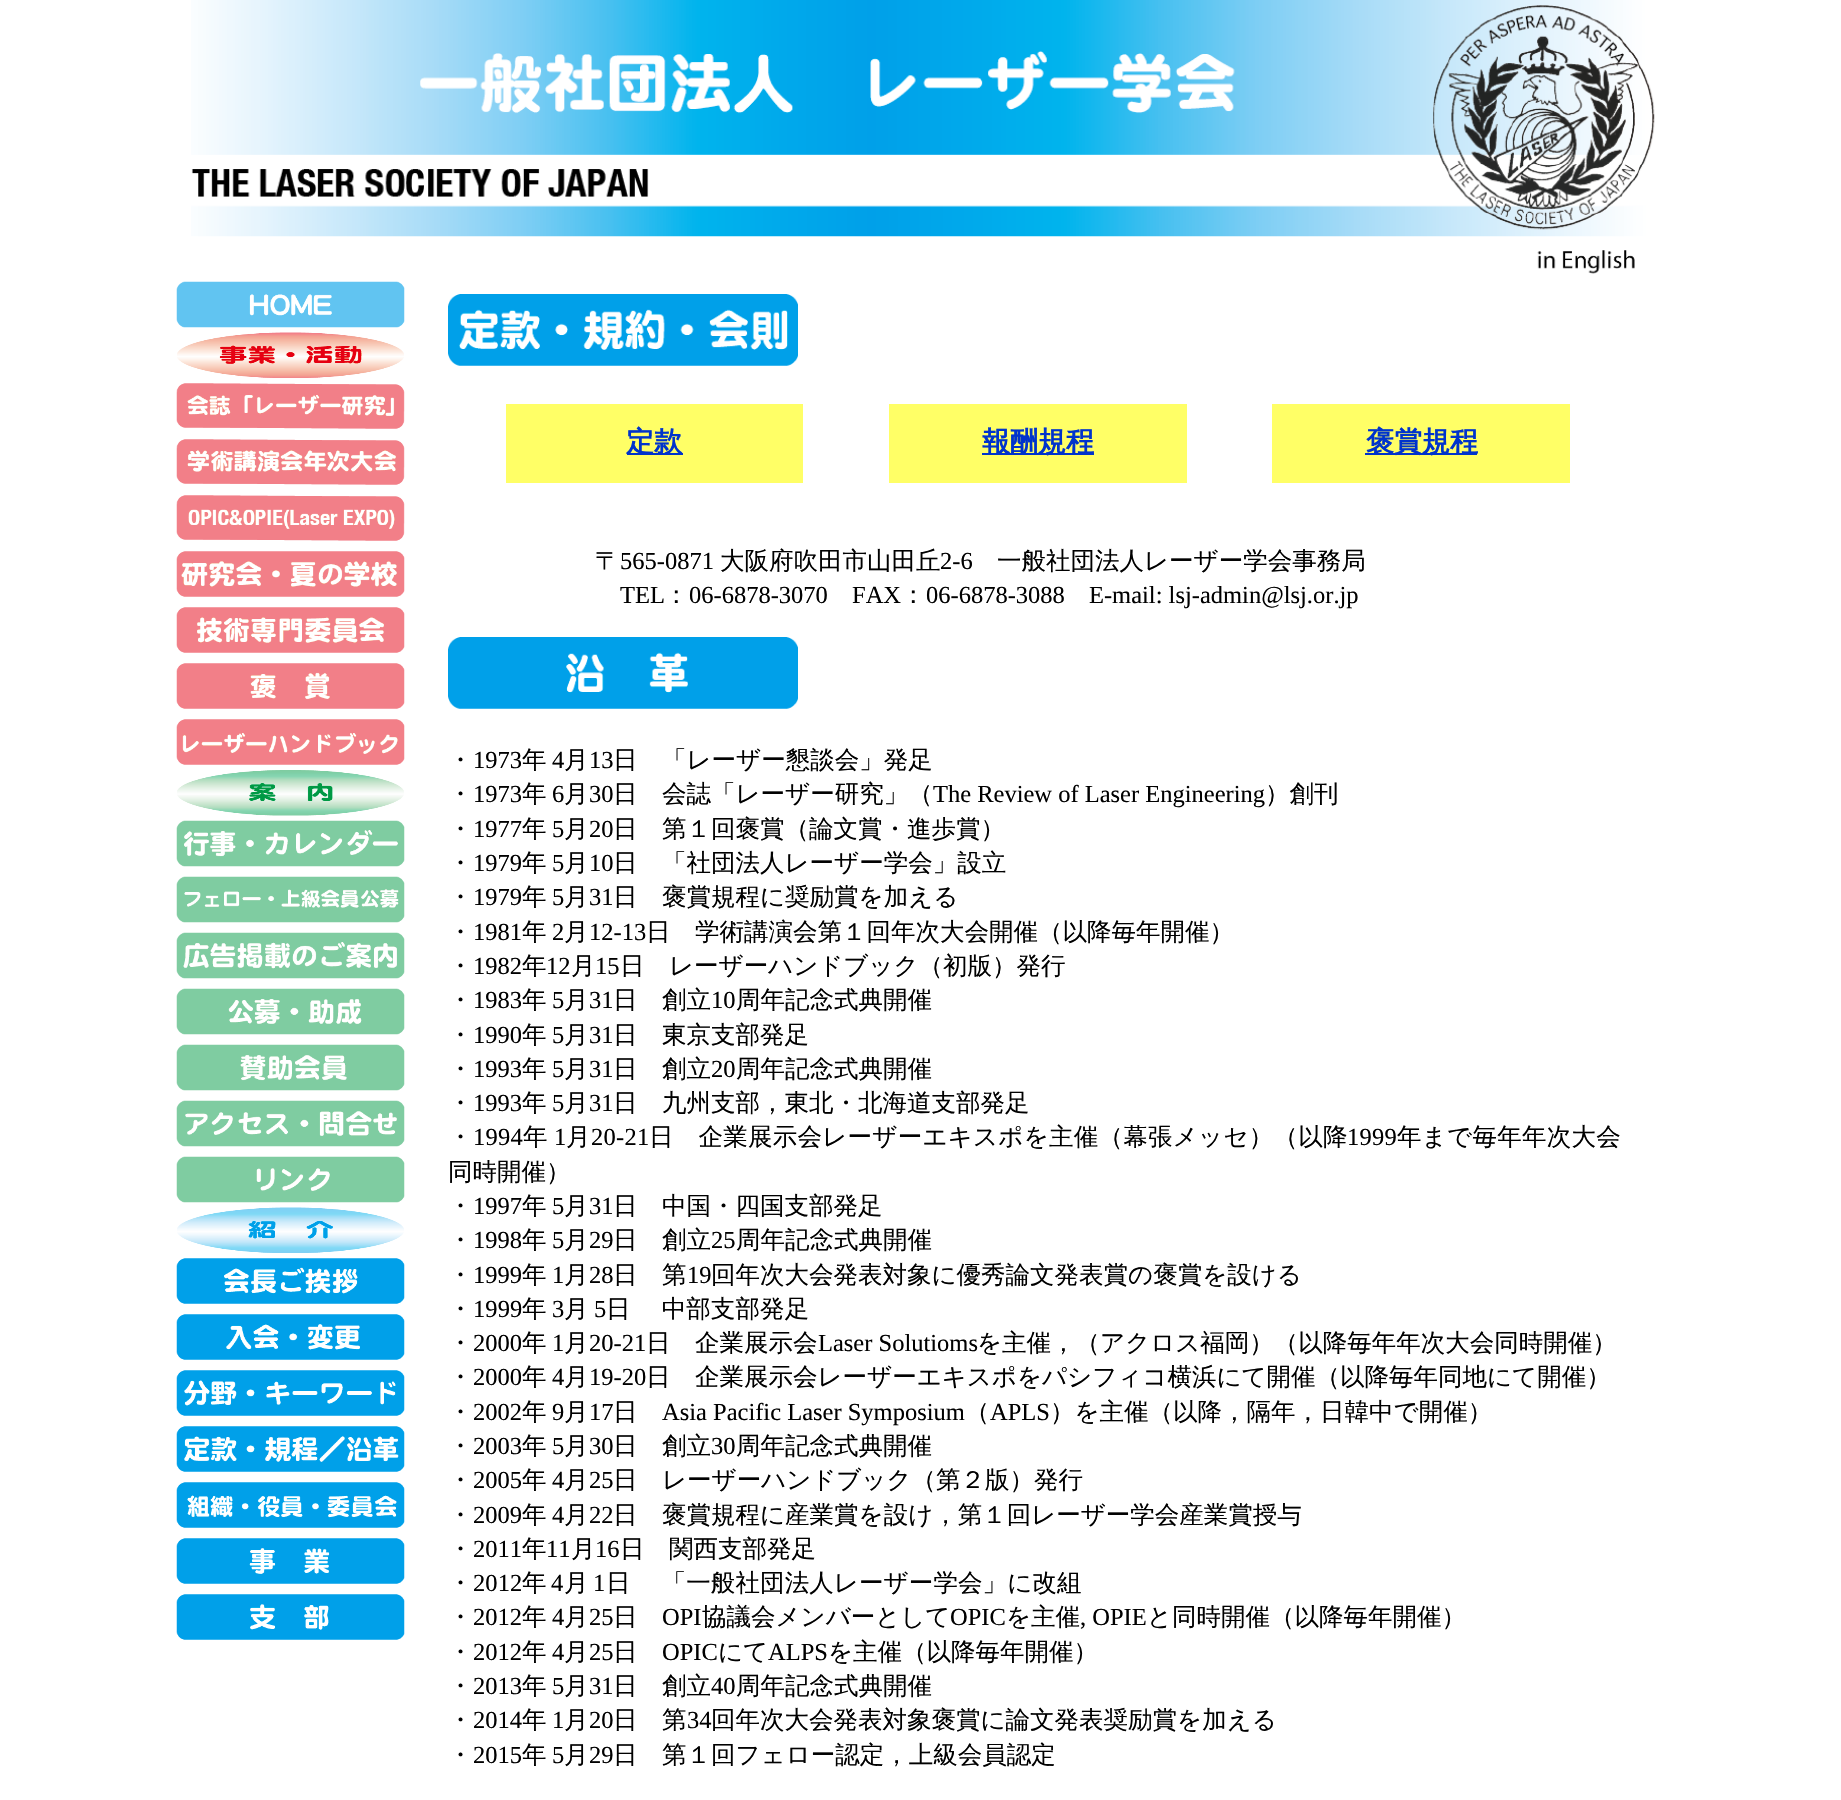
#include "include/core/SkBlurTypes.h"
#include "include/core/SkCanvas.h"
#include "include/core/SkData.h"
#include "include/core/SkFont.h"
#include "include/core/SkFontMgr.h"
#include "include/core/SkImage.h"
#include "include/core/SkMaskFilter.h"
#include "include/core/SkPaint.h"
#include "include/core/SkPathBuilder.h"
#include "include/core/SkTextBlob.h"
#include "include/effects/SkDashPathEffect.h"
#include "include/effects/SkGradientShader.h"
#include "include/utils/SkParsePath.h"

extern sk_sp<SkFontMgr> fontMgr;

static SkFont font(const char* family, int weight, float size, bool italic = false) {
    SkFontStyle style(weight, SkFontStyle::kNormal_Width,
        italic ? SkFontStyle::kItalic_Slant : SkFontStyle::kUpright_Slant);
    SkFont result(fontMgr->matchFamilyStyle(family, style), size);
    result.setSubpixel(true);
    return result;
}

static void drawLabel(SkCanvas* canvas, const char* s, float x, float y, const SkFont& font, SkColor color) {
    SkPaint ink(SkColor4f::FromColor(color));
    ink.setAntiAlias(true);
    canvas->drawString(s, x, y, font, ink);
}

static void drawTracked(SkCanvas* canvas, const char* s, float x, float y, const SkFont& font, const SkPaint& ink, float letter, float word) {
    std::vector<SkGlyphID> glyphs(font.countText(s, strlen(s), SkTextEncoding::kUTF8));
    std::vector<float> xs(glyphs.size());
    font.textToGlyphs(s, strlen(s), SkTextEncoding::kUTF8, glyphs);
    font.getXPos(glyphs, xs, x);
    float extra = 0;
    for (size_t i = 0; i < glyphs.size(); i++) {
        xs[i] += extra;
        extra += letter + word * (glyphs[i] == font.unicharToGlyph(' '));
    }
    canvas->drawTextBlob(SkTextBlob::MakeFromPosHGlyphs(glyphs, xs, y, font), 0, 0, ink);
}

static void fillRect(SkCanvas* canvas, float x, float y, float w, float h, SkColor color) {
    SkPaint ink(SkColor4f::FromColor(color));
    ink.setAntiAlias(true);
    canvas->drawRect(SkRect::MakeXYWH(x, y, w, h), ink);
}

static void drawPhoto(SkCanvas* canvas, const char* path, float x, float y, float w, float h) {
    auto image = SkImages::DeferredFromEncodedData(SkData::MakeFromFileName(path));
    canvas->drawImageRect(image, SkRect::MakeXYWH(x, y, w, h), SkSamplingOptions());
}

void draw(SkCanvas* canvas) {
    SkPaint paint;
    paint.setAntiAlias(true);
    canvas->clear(0xFFFFFFFF);
    drawPhoto(canvas, "assets/img1.png", 191, 0, 1464, 237);
    drawPhoto(canvas, "assets/img2.png", 1537, 250, 98, 24);
    drawPhoto(canvas, "assets/img3.png", 176, 281, 229, 47);
    drawPhoto(canvas, "assets/img4.png", 177, 332, 227, 46);
    drawPhoto(canvas, "assets/img5.png", 176, 383, 229, 46);
    drawPhoto(canvas, "assets/img6.png", 176, 439, 229, 46);
    drawPhoto(canvas, "assets/img7.png", 176, 495, 229, 46);
    drawPhoto(canvas, "assets/img8.png", 176, 551, 229, 46);
    drawPhoto(canvas, "assets/img9.png", 176, 607, 229, 46);
    drawPhoto(canvas, "assets/img10.png", 176, 663, 229, 46);
    drawPhoto(canvas, "assets/img11.png", 176, 719, 229, 46);
    drawPhoto(canvas, "assets/img12.png", 177, 770, 227, 46);
    drawPhoto(canvas, "assets/img13.png", 176, 820, 229, 47);
    drawPhoto(canvas, "assets/img14.png", 176, 876, 229, 47);
    drawPhoto(canvas, "assets/img15.png", 176, 932, 229, 47);
    drawPhoto(canvas, "assets/img16.png", 176, 988, 229, 47);
    drawPhoto(canvas, "assets/img17.png", 176, 1044, 229, 47);
    drawPhoto(canvas, "assets/img18.png", 176, 1100, 229, 47);
    drawPhoto(canvas, "assets/img19.png", 176, 1156, 229, 47);
    drawPhoto(canvas, "assets/img20.png", 177, 1207, 227, 46);
    drawPhoto(canvas, "assets/img21.png", 176, 1258, 229, 46);
    drawPhoto(canvas, "assets/img22.png", 176, 1314, 229, 46);
    drawPhoto(canvas, "assets/img23.png", 176, 1370, 229, 46);
    drawPhoto(canvas, "assets/img24.png", 176, 1426, 229, 46);
    drawPhoto(canvas, "assets/img25.png", 176, 1482, 229, 46);
    drawPhoto(canvas, "assets/img26.png", 176, 1538, 229, 46);
    drawPhoto(canvas, "assets/img27.png", 176, 1594, 229, 46);
    drawPhoto(canvas, "assets/img28.png", 448, 294, 350, 72);
    fillRect(canvas, 506, 404, 297, 79, 0xFFFFFF66);
    fillRect(canvas, 627, 453, 56, 2, 0xFF0033CC);
    SkFont font1 = font("WenQuanYi Zen Hei", 700, 28);
    drawLabel(canvas, "定款", 626, 451, font1, 0xFF0033CC);
    fillRect(canvas, 889, 404, 298, 79, 0xFFFFFF66);
    fillRect(canvas, 982, 453, 112, 2, 0xFF0033CC);
    drawLabel(canvas, "報酬規程", 982, 451, font1, 0xFF0033CC);
    fillRect(canvas, 1272, 404, 298, 79, 0xFFFFFF66);
    fillRect(canvas, 1365, 453, 112, 2, 0xFF0033CC);
    drawLabel(canvas, "褒賞規程", 1366, 451, font1, 0xFF0033CC);
    SkFont font2 = font("WenQuanYi Zen Hei", 500, 24.5f);
    drawLabel(canvas, "〒", 595, 569, font2, 0xFF000000);
    SkFont font3 = font("Liberation Serif", 400, 24.5f);
    drawLabel(canvas, "565-0871", 620, 569, font3, 0xFF000000);
    drawLabel(canvas, "大阪府吹田市山田丘", 720, 569, font2, 0xFF000000);
    drawLabel(canvas, "2-6", 940, 569, font3, 0xFF000000);
    drawLabel(canvas, "一般社団法人レーザー学会事務局", 997, 569, font2, 0xFF000000);
    drawLabel(canvas, "TEL", 620, 603, font3, 0xFF000000);
    drawLabel(canvas, "：", 664, 603, font2, 0xFF000000);
    drawLabel(canvas, "06-6878-3070", 689, 603, font3, 0xFF000000);
    drawLabel(canvas, "FAX", 852, 603, font3, 0xFF000000);
    drawLabel(canvas, "：", 901, 603, font2, 0xFF000000);
    drawLabel(canvas, "06-6878-3088", 926, 603, font3, 0xFF000000);
    drawLabel(canvas, "E-mail: lsj-admin@lsj.or.jp", 1089, 603, font3, 0xFF000000);
    drawPhoto(canvas, "assets/img29.png", 448, 637, 350, 72);
    drawLabel(canvas, "・", 448, 768, font2, 0xFF000000);
    drawLabel(canvas, "1973", 473, 768, font3, 0xFF000000);
    drawLabel(canvas, "年", 522, 768, font2, 0xFF000000);
    drawLabel(canvas, "4", 552, 768, font3, 0xFF000000);
    drawLabel(canvas, "月", 564, 768, font2, 0xFF000000);
    drawLabel(canvas, "13", 589, 768, font3, 0xFF000000);
    drawLabel(canvas, "日　「レーザー懇談会」発足", 613, 768, font2, 0xFF000000);
    drawLabel(canvas, "・", 448, 802, font2, 0xFF000000);
    drawLabel(canvas, "1973", 473, 802, font3, 0xFF000000);
    drawLabel(canvas, "年", 522, 802, font2, 0xFF000000);
    drawLabel(canvas, "6", 552, 802, font3, 0xFF000000);
    drawLabel(canvas, "月", 564, 802, font2, 0xFF000000);
    drawLabel(canvas, "30", 589, 802, font3, 0xFF000000);
    drawLabel(canvas, "日　会誌「レーザー研究」（", 613, 802, font2, 0xFF000000);
    drawLabel(canvas, "The Review of Laser Engineering", 933, 802, font3, 0xFF000000);
    drawLabel(canvas, "）創刊", 1265, 802, font2, 0xFF000000);
    drawLabel(canvas, "・", 448, 837, font2, 0xFF000000);
    drawLabel(canvas, "1977", 473, 837, font3, 0xFF000000);
    drawLabel(canvas, "年", 522, 837, font2, 0xFF000000);
    drawLabel(canvas, "5", 552, 837, font3, 0xFF000000);
    drawLabel(canvas, "月", 564, 837, font2, 0xFF000000);
    drawLabel(canvas, "20", 589, 837, font3, 0xFF000000);
    drawLabel(canvas, "日　第１回褒賞（論文賞・進歩賞）", 613, 837, font2, 0xFF000000);
    drawLabel(canvas, "・", 448, 871, font2, 0xFF000000);
    drawLabel(canvas, "1979", 473, 871, font3, 0xFF000000);
    drawLabel(canvas, "年", 522, 871, font2, 0xFF000000);
    drawLabel(canvas, "5", 552, 871, font3, 0xFF000000);
    drawLabel(canvas, "月", 564, 871, font2, 0xFF000000);
    drawLabel(canvas, "10", 589, 871, font3, 0xFF000000);
    drawLabel(canvas, "日　「社団法人レーザー学会」設立", 613, 871, font2, 0xFF000000);
    drawLabel(canvas, "・", 448, 905, font2, 0xFF000000);
    drawLabel(canvas, "1979", 473, 905, font3, 0xFF000000);
    drawLabel(canvas, "年", 522, 905, font2, 0xFF000000);
    drawLabel(canvas, "5", 552, 905, font3, 0xFF000000);
    drawLabel(canvas, "月", 564, 905, font2, 0xFF000000);
    drawLabel(canvas, "31", 589, 905, font3, 0xFF000000);
    drawLabel(canvas, "日　褒賞規程に奨励賞を加える", 613, 905, font2, 0xFF000000);
    drawLabel(canvas, "・", 448, 940, font2, 0xFF000000);
    drawLabel(canvas, "1981", 473, 940, font3, 0xFF000000);
    drawLabel(canvas, "年", 522, 940, font2, 0xFF000000);
    drawLabel(canvas, "2", 552, 940, font3, 0xFF000000);
    drawLabel(canvas, "月", 564, 940, font2, 0xFF000000);
    drawLabel(canvas, "12-13", 589, 940, font3, 0xFF000000);
    drawLabel(canvas, "日　学術講演会第１回年次大会開催（以降毎年開催）", 646, 940, font2, 0xFF000000);
    drawLabel(canvas, "・", 448, 974, font2, 0xFF000000);
    drawLabel(canvas, "1982", 473, 974, font3, 0xFF000000);
    drawLabel(canvas, "年", 522, 974, font2, 0xFF000000);
    drawLabel(canvas, "12", 546, 974, font3, 0xFF000000);
    drawLabel(canvas, "月", 571, 974, font2, 0xFF000000);
    drawLabel(canvas, "15", 595, 974, font3, 0xFF000000);
    drawLabel(canvas, "日　レーザーハンドブック（初版）発行", 620, 974, font2, 0xFF000000);
    drawLabel(canvas, "・", 448, 1008, font2, 0xFF000000);
    drawLabel(canvas, "1983", 473, 1008, font3, 0xFF000000);
    drawLabel(canvas, "年", 522, 1008, font2, 0xFF000000);
    drawLabel(canvas, "5", 552, 1008, font3, 0xFF000000);
    drawLabel(canvas, "月", 564, 1008, font2, 0xFF000000);
    drawLabel(canvas, "31", 589, 1008, font3, 0xFF000000);
    drawLabel(canvas, "日　創立", 613, 1008, font2, 0xFF000000);
    drawLabel(canvas, "10", 711, 1008, font3, 0xFF000000);
    drawLabel(canvas, "周年記念式典開催", 736, 1008, font2, 0xFF000000);
    drawLabel(canvas, "・", 448, 1043, font2, 0xFF000000);
    drawLabel(canvas, "1990", 473, 1043, font3, 0xFF000000);
    drawLabel(canvas, "年", 522, 1043, font2, 0xFF000000);
    drawLabel(canvas, "5", 552, 1043, font3, 0xFF000000);
    drawLabel(canvas, "月", 564, 1043, font2, 0xFF000000);
    drawLabel(canvas, "31", 589, 1043, font3, 0xFF000000);
    drawLabel(canvas, "日　東京支部発足", 613, 1043, font2, 0xFF000000);
    drawLabel(canvas, "・", 448, 1077, font2, 0xFF000000);
    drawLabel(canvas, "1993", 473, 1077, font3, 0xFF000000);
    drawLabel(canvas, "年", 522, 1077, font2, 0xFF000000);
    drawLabel(canvas, "5", 552, 1077, font3, 0xFF000000);
    drawLabel(canvas, "月", 564, 1077, font2, 0xFF000000);
    drawLabel(canvas, "31", 589, 1077, font3, 0xFF000000);
    drawLabel(canvas, "日　創立", 613, 1077, font2, 0xFF000000);
    drawLabel(canvas, "20", 711, 1077, font3, 0xFF000000);
    drawLabel(canvas, "周年記念式典開催", 736, 1077, font2, 0xFF000000);
    drawLabel(canvas, "・", 448, 1111, font2, 0xFF000000);
    drawLabel(canvas, "1993", 473, 1111, font3, 0xFF000000);
    drawLabel(canvas, "年", 522, 1111, font2, 0xFF000000);
    drawLabel(canvas, "5", 552, 1111, font3, 0xFF000000);
    drawLabel(canvas, "月", 564, 1111, font2, 0xFF000000);
    drawLabel(canvas, "31", 589, 1111, font3, 0xFF000000);
    drawLabel(canvas, "日　九州支部，東北・北海道支部発足", 613, 1111, font2, 0xFF000000);
    paint.setColor(0xFF000000);
    drawTracked(canvas, "・", 448, 1145, font2, paint, 0.25f, 0);
    drawTracked(canvas, "1994", 473, 1145, font3, paint, 0.25f, 0);
    drawTracked(canvas, "年", 523, 1145, font2, paint, 0.25f, 0);
    drawTracked(canvas, "1", 554, 1145, font3, paint, 0.25f, 0);
    drawTracked(canvas, "月", 566, 1145, font2, paint, 0.25f, 0);
    drawTracked(canvas, "20-21", 591, 1145, font3, paint, 0.25f, 0);
    drawTracked(canvas, "日　企業展示会レーザーエキスポを主催（幕張メッセ）（以降", 649, 1145, font2, paint, 0.25f, 0);
    drawTracked(canvas, "1999", 1347, 1145, font3, paint, 0.25f, 0);
    drawTracked(canvas, "年まで毎年年次大会", 1397, 1145, font2, paint, 0.25f, 0);
    drawLabel(canvas, "同時開催）", 448, 1180, font2, 0xFF000000);
    drawLabel(canvas, "・", 448, 1214, font2, 0xFF000000);
    drawLabel(canvas, "1997", 473, 1214, font3, 0xFF000000);
    drawLabel(canvas, "年", 522, 1214, font2, 0xFF000000);
    drawLabel(canvas, "5", 552, 1214, font3, 0xFF000000);
    drawLabel(canvas, "月", 564, 1214, font2, 0xFF000000);
    drawLabel(canvas, "31", 589, 1214, font3, 0xFF000000);
    drawLabel(canvas, "日　中国・四国支部発足", 613, 1214, font2, 0xFF000000);
    drawLabel(canvas, "・", 448, 1248, font2, 0xFF000000);
    drawLabel(canvas, "1998", 473, 1248, font3, 0xFF000000);
    drawLabel(canvas, "年", 522, 1248, font2, 0xFF000000);
    drawLabel(canvas, "5", 552, 1248, font3, 0xFF000000);
    drawLabel(canvas, "月", 564, 1248, font2, 0xFF000000);
    drawLabel(canvas, "29", 589, 1248, font3, 0xFF000000);
    drawLabel(canvas, "日　創立", 613, 1248, font2, 0xFF000000);
    drawLabel(canvas, "25", 711, 1248, font3, 0xFF000000);
    drawLabel(canvas, "周年記念式典開催", 736, 1248, font2, 0xFF000000);
    drawLabel(canvas, "・", 448, 1283, font2, 0xFF000000);
    drawLabel(canvas, "1999", 473, 1283, font3, 0xFF000000);
    drawLabel(canvas, "年", 522, 1283, font2, 0xFF000000);
    drawLabel(canvas, "1", 552, 1283, font3, 0xFF000000);
    drawLabel(canvas, "月", 564, 1283, font2, 0xFF000000);
    drawLabel(canvas, "28", 589, 1283, font3, 0xFF000000);
    drawLabel(canvas, "日　第", 613, 1283, font2, 0xFF000000);
    drawLabel(canvas, "19", 687, 1283, font3, 0xFF000000);
    drawLabel(canvas, "回年次大会発表対象に優秀論文発表賞の褒賞を設ける", 711, 1283, font2, 0xFF000000);
    drawTracked(canvas, "・", 448, 1317, font2, paint, 0.1f, 0);
    drawTracked(canvas, "1999", 473, 1317, font3, paint, 0.1f, 0);
    drawTracked(canvas, "年", 522, 1317, font2, paint, 0.1f, 0);
    drawTracked(canvas, "3", 552, 1317, font3, paint, 0.1f, 0);
    drawTracked(canvas, "月", 564, 1317, font2, paint, 0.1f, 0);
    drawTracked(canvas, "5", 594, 1317, font3, paint, 0.1f, 0);
    drawTracked(canvas, "日 　中部支部発足", 606, 1317, font2, paint, 0.1f, -1);
    drawLabel(canvas, "・", 448, 1351, font2, 0xFF000000);
    drawLabel(canvas, "2000", 473, 1351, font3, 0xFF000000);
    drawLabel(canvas, "年", 522, 1351, font2, 0xFF000000);
    drawLabel(canvas, "1", 552, 1351, font3, 0xFF000000);
    drawLabel(canvas, "月", 564, 1351, font2, 0xFF000000);
    drawLabel(canvas, "20-21", 589, 1351, font3, 0xFF000000);
    drawLabel(canvas, "日　企業展示会", 646, 1351, font2, 0xFF000000);
    drawLabel(canvas, "Laser Solutioms", 818, 1351, font3, 0xFF000000);
    drawLabel(canvas, "を主催，（アクロス福岡）（以降毎年年次大会同時開催）", 977, 1351, font2, 0xFF000000);
    drawLabel(canvas, "・", 448, 1385, font2, 0xFF000000);
    drawLabel(canvas, "2000", 473, 1385, font3, 0xFF000000);
    drawLabel(canvas, "年", 522, 1385, font2, 0xFF000000);
    drawLabel(canvas, "4", 552, 1385, font3, 0xFF000000);
    drawLabel(canvas, "月", 564, 1385, font2, 0xFF000000);
    drawLabel(canvas, "19-20", 589, 1385, font3, 0xFF000000);
    drawLabel(canvas, "日　企業展示会レーザーエキスポをパシフィコ横浜にて開催（以降毎年同地にて開催）", 646, 1385, font2, 0xFF000000);
    drawLabel(canvas, "・", 448, 1420, font2, 0xFF000000);
    drawLabel(canvas, "2002", 473, 1420, font3, 0xFF000000);
    drawLabel(canvas, "年", 522, 1420, font2, 0xFF000000);
    drawLabel(canvas, "9", 552, 1420, font3, 0xFF000000);
    drawLabel(canvas, "月", 564, 1420, font2, 0xFF000000);
    drawLabel(canvas, "17", 589, 1420, font3, 0xFF000000);
    drawLabel(canvas, "日", 613, 1420, font2, 0xFF000000);
    drawLabel(canvas, "Asia Pacific Laser Symposium", 662, 1420, font3, 0xFF000000);
    drawLabel(canvas, "（", 965, 1420, font2, 0xFF000000);
    drawLabel(canvas, "APLS", 990, 1420, font3, 0xFF000000);
    drawLabel(canvas, "）を主催（以降，隔年，日韓中で開催）", 1050, 1420, font2, 0xFF000000);
    drawLabel(canvas, "・", 448, 1454, font2, 0xFF000000);
    drawLabel(canvas, "2003", 473, 1454, font3, 0xFF000000);
    drawLabel(canvas, "年", 522, 1454, font2, 0xFF000000);
    drawLabel(canvas, "5", 552, 1454, font3, 0xFF000000);
    drawLabel(canvas, "月", 564, 1454, font2, 0xFF000000);
    drawLabel(canvas, "30", 589, 1454, font3, 0xFF000000);
    drawLabel(canvas, "日　創立", 613, 1454, font2, 0xFF000000);
    drawLabel(canvas, "30", 711, 1454, font3, 0xFF000000);
    drawLabel(canvas, "周年記念式典開催", 736, 1454, font2, 0xFF000000);
    drawLabel(canvas, "・", 448, 1488, font2, 0xFF000000);
    drawLabel(canvas, "2005", 473, 1488, font3, 0xFF000000);
    drawLabel(canvas, "年", 522, 1488, font2, 0xFF000000);
    drawLabel(canvas, "4", 552, 1488, font3, 0xFF000000);
    drawLabel(canvas, "月", 564, 1488, font2, 0xFF000000);
    drawLabel(canvas, "25", 589, 1488, font3, 0xFF000000);
    drawLabel(canvas, "日　レーザーハンドブック（第２版）発行", 613, 1488, font2, 0xFF000000);
    drawLabel(canvas, "・", 448, 1523, font2, 0xFF000000);
    drawLabel(canvas, "2009", 473, 1523, font3, 0xFF000000);
    drawLabel(canvas, "年", 522, 1523, font2, 0xFF000000);
    drawLabel(canvas, "4", 552, 1523, font3, 0xFF000000);
    drawLabel(canvas, "月", 564, 1523, font2, 0xFF000000);
    drawLabel(canvas, "22", 589, 1523, font3, 0xFF000000);
    drawLabel(canvas, "日　褒賞規程に産業賞を設け，第１回レーザー学会産業賞授与", 613, 1523, font2, 0xFF000000);
    drawLabel(canvas, "・", 448, 1557, font2, 0xFF000000);
    drawLabel(canvas, "2011", 473, 1557, font3, 0xFF000000);
    drawLabel(canvas, "年", 522, 1557, font2, 0xFF000000);
    drawLabel(canvas, "11", 546, 1557, font3, 0xFF000000);
    drawLabel(canvas, "月", 571, 1557, font2, 0xFF000000);
    drawLabel(canvas, "16", 595, 1557, font3, 0xFF000000);
    drawLabel(canvas, "日　関西支部発足", 620, 1557, font2, 0xFF000000);
    drawTracked(canvas, "・", 448, 1591, font2, paint, 0.1f, 0);
    drawTracked(canvas, "2012", 473, 1591, font3, paint, 0.1f, 0);
    drawTracked(canvas, "年", 522, 1591, font2, paint, 0.1f, 0);
    drawTracked(canvas, "4", 551, 1591, font3, paint, 0.1f, 0);
    drawTracked(canvas, "月", 564, 1591, font2, paint, 0.1f, 0);
    drawTracked(canvas, "1", 593, 1591, font3, paint, 0.1f, 0);
    drawTracked(canvas, "日 　「一般社団法人レーザー学会」に改組", 606, 1591, font2, paint, 0.1f, -1);
    drawLabel(canvas, "・", 448, 1625, font2, 0xFF000000);
    drawLabel(canvas, "2012", 473, 1625, font3, 0xFF000000);
    drawLabel(canvas, "年", 522, 1625, font2, 0xFF000000);
    drawLabel(canvas, "4", 552, 1625, font3, 0xFF000000);
    drawLabel(canvas, "月", 564, 1625, font2, 0xFF000000);
    drawLabel(canvas, "25", 589, 1625, font3, 0xFF000000);
    drawLabel(canvas, "日", 613, 1625, font2, 0xFF000000);
    drawLabel(canvas, "OPI", 662, 1625, font3, 0xFF000000);
    drawLabel(canvas, "協議会メンバーとして", 702, 1625, font2, 0xFF000000);
    drawLabel(canvas, "OPIC", 950, 1625, font3, 0xFF000000);
    drawLabel(canvas, "を主催", 1006, 1625, font2, 0xFF000000);
    drawLabel(canvas, ", OPIE", 1080, 1625, font3, 0xFF000000);
    drawLabel(canvas, "と同時開催（以降毎年開催）", 1147, 1625, font2, 0xFF000000);
    drawLabel(canvas, "・", 448, 1660, font2, 0xFF000000);
    drawLabel(canvas, "2012", 473, 1660, font3, 0xFF000000);
    drawLabel(canvas, "年", 522, 1660, font2, 0xFF000000);
    drawLabel(canvas, "4", 552, 1660, font3, 0xFF000000);
    drawLabel(canvas, "月", 564, 1660, font2, 0xFF000000);
    drawLabel(canvas, "25", 589, 1660, font3, 0xFF000000);
    drawLabel(canvas, "日", 613, 1660, font2, 0xFF000000);
    drawLabel(canvas, "OPIC", 662, 1660, font3, 0xFF000000);
    drawLabel(canvas, "にて", 718, 1660, font2, 0xFF000000);
    drawLabel(canvas, "ALPS", 768, 1660, font3, 0xFF000000);
    drawLabel(canvas, "を主催（以降毎年開催）", 828, 1660, font2, 0xFF000000);
    drawLabel(canvas, "・", 448, 1694, font2, 0xFF000000);
    drawLabel(canvas, "2013", 473, 1694, font3, 0xFF000000);
    drawLabel(canvas, "年", 522, 1694, font2, 0xFF000000);
    drawLabel(canvas, "5", 552, 1694, font3, 0xFF000000);
    drawLabel(canvas, "月", 564, 1694, font2, 0xFF000000);
    drawLabel(canvas, "31", 589, 1694, font3, 0xFF000000);
    drawLabel(canvas, "日　創立", 613, 1694, font2, 0xFF000000);
    drawLabel(canvas, "40", 711, 1694, font3, 0xFF000000);
    drawLabel(canvas, "周年記念式典開催", 736, 1694, font2, 0xFF000000);
    drawLabel(canvas, "・", 448, 1728, font2, 0xFF000000);
    drawLabel(canvas, "2014", 473, 1728, font3, 0xFF000000);
    drawLabel(canvas, "年", 522, 1728, font2, 0xFF000000);
    drawLabel(canvas, "1", 552, 1728, font3, 0xFF000000);
    drawLabel(canvas, "月", 564, 1728, font2, 0xFF000000);
    drawLabel(canvas, "20", 589, 1728, font3, 0xFF000000);
    drawLabel(canvas, "日　第", 613, 1728, font2, 0xFF000000);
    drawLabel(canvas, "34", 687, 1728, font3, 0xFF000000);
    drawLabel(canvas, "回年次大会発表対象褒賞に論文発表奨励賞を加える", 711, 1728, font2, 0xFF000000);
    drawLabel(canvas, "・", 448, 1763, font2, 0xFF000000);
    drawLabel(canvas, "2015", 473, 1763, font3, 0xFF000000);
    drawLabel(canvas, "年", 522, 1763, font2, 0xFF000000);
    drawLabel(canvas, "5", 552, 1763, font3, 0xFF000000);
    drawLabel(canvas, "月", 564, 1763, font2, 0xFF000000);
    drawLabel(canvas, "29", 589, 1763, font3, 0xFF000000);
    drawLabel(canvas, "日　第１回フェロー認定，上級会員認定", 613, 1763, font2, 0xFF000000);
}
